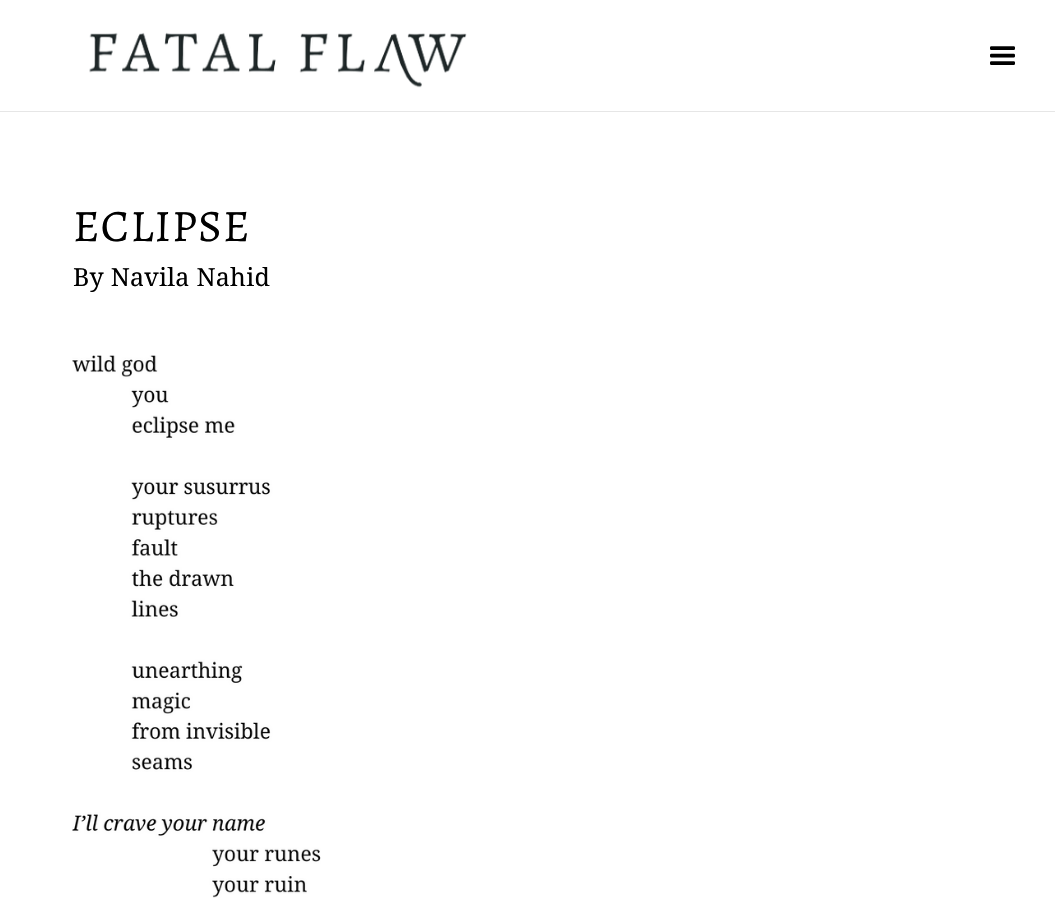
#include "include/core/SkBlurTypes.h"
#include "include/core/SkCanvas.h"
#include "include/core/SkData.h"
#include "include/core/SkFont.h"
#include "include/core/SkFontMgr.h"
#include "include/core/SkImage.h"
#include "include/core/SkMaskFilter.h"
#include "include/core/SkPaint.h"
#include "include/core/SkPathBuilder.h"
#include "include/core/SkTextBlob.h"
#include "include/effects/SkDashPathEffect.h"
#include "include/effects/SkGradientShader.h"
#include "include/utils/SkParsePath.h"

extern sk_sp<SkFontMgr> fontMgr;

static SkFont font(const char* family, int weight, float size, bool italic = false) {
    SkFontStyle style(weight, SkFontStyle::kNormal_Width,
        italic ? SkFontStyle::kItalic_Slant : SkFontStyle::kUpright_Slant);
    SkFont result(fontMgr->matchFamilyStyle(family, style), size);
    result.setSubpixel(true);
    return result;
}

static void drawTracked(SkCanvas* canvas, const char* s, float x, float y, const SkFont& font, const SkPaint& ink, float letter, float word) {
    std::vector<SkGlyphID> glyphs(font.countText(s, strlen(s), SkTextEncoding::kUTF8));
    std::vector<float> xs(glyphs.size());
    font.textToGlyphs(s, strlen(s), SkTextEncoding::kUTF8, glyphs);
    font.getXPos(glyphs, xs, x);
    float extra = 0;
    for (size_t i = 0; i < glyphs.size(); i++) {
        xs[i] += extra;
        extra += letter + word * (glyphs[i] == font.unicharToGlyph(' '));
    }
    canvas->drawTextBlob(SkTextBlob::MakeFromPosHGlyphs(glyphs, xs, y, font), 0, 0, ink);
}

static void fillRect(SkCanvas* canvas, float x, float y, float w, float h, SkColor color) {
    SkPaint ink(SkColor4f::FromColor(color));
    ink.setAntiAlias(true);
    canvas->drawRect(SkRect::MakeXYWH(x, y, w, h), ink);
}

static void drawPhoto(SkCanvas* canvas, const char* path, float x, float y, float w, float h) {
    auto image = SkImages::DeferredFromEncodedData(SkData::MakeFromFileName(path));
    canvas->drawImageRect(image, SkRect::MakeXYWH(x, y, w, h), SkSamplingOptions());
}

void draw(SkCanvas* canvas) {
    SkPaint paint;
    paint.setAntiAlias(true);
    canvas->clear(0xFFFFFFFF);
    fillRect(canvas, 0, 111, 1055, 1, 0xFFE6E6E6);
    drawPhoto(canvas, "assets/img1.png", 89, 32, 378, 56);
    drawPhoto(canvas, "assets/img2.png", 990, 46, 25, 19);
    SkFont font1 = font("Alegreya SC", 400, 45);
    paint.setColor(0xFF000000);
    drawTracked(canvas, "ECLIPSE", 73, 241, font1, paint, 1.25f, 0);
    SkFont font2 = font("Droid Serif", 400, 25);
    drawTracked(canvas, "By Navila Nahid", 73, 286, font2, paint, 0.25f, 0);
    drawPhoto(canvas, "assets/img3.png", 72, 355, 249, 543);
}
